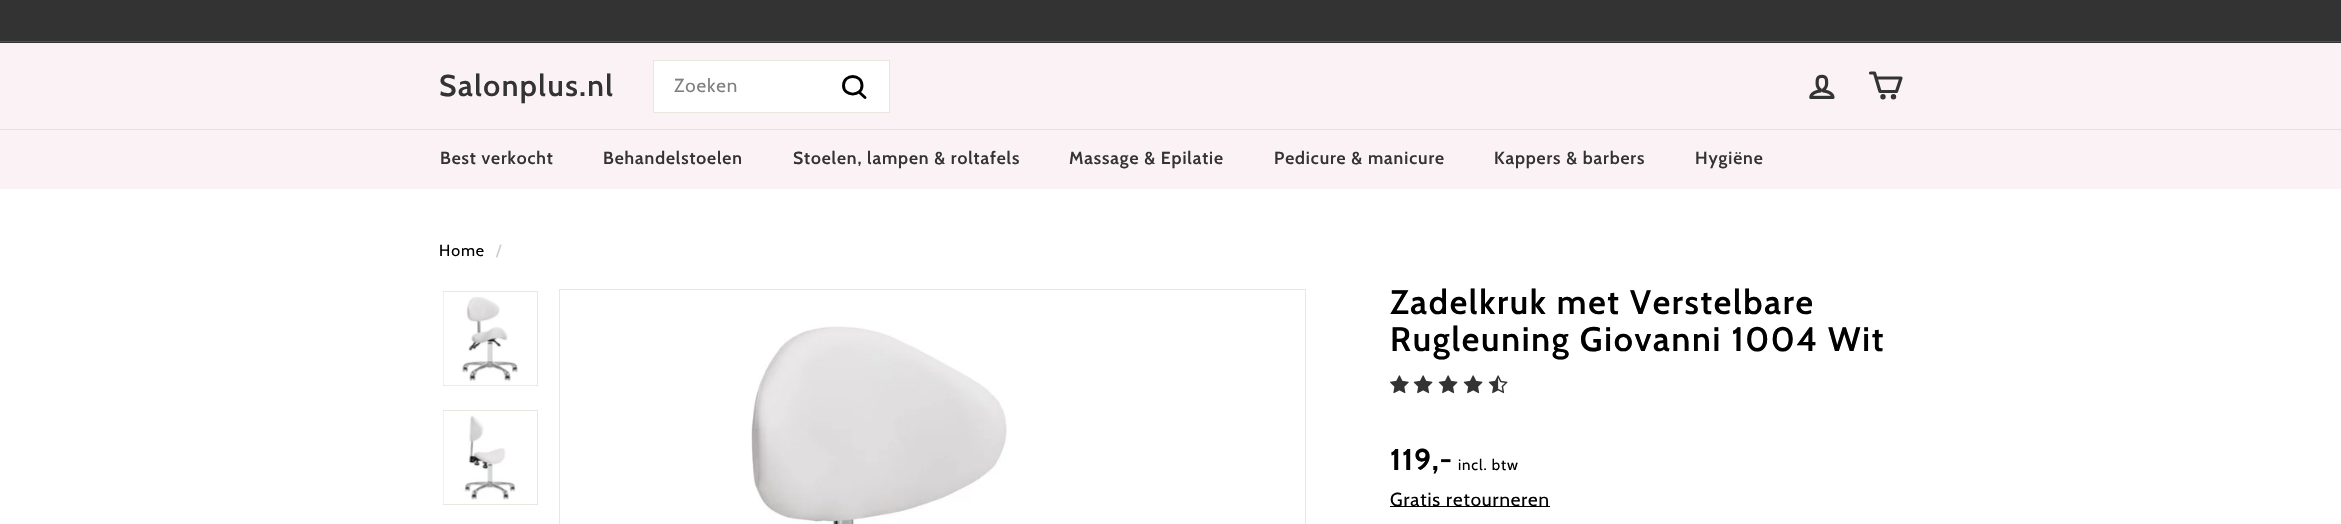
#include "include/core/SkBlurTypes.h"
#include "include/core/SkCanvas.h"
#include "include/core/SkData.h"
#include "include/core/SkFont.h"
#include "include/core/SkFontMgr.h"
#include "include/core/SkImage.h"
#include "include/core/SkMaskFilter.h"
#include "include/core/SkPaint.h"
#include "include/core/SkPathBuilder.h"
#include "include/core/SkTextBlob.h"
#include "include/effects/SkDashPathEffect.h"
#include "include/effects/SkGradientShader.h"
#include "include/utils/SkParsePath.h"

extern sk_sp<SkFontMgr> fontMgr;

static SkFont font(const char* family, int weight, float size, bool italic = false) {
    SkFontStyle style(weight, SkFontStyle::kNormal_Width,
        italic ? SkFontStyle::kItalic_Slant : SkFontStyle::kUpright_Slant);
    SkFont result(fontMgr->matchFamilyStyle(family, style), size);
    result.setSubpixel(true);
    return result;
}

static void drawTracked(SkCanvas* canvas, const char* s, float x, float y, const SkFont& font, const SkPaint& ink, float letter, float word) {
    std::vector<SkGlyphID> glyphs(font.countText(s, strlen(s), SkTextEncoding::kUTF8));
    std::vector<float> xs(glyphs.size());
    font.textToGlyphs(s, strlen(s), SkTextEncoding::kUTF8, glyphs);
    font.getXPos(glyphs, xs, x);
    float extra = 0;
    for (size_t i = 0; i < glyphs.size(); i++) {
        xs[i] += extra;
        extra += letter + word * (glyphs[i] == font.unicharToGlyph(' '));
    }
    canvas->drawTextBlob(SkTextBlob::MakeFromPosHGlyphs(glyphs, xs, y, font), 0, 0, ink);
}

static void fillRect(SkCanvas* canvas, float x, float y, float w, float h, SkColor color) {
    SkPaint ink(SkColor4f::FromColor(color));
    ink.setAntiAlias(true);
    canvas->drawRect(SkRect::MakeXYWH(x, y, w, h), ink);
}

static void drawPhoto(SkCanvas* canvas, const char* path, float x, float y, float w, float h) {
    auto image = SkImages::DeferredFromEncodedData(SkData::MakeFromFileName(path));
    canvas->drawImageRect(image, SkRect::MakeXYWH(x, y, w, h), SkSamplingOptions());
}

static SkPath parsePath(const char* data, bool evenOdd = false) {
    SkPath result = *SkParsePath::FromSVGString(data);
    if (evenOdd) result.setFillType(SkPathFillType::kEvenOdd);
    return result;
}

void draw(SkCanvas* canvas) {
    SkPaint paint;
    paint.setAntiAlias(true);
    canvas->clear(0xFFFFFFFF);
    fillRect(canvas, 0, 0, 2341, 43, 0xFF333333);
    fillRect(canvas, 0, 41, 2341, 1, 0xFF525252);
    fillRect(canvas, 0, 43, 2341, 86, 0xFFFAF2F4);
    SkFont font1 = font("Cabin", 600, 30);
    paint.setColor(0xFF333333);
    drawTracked(canvas, "Salonplus.nl", 439, 96, font1, paint, 1.5f, 0);
    paint.setColor(0xFFFFFFFF);
    canvas->drawRect(SkRect::MakeXYWH(653.5f, 60.5f, 236, 52), paint);
    paint.setStroke(true);
    paint.setStrokeWidth(1);
    paint.setColor(0xFFE8E8E1);
    canvas->drawRect(SkRect::MakeXYWH(653.5f, 60.5f, 236, 52), paint);
    SkFont font2 = font("Cabin", 400, 18.75f);
    paint.setStroke(false);
    paint.setColor(0xFF808080);
    drawTracked(canvas, "Zoeken", 674, 92, font2, paint, 0.9f, 0);
    paint.setStroke(true);
    paint.setStrokeWidth(2.9f);
    paint.setStrokeCap(SkPaint::kRound_Cap);
    paint.setStrokeJoin(SkPaint::kRound_Join);
    paint.setColor(0xFF000000);
    canvas->drawPath(parsePath("M862 85.5C862 97 843.5 97 843.5 85.5C843.5 73.5 862 73.5 862 85.5ZM865 97.5L859 92"), paint);
    drawPhoto(canvas, "assets/img1.png", 1809, 74, 26, 25);
    paint.setStrokeWidth(3.2f);
    paint.setColor(0xFF333333);
    canvas->drawPath(parsePath("M1876 78H1901L1896.5 91.5H1880L1874.5 73H1870.5"), paint);
    paint.setStroke(false);
    canvas->drawCircle(1883, 96.7f, 1.1f, paint);
    paint.setStroke(true);
    paint.setStrokeCap(SkPaint::kButt_Cap);
    paint.setStrokeJoin(SkPaint::kMiter_Join);
    canvas->drawCircle(1883, 96.7f, 1.1f, paint);
    paint.setStroke(false);
    canvas->drawCircle(1893.5f, 96.7f, 1.1f, paint);
    paint.setStroke(true);
    canvas->drawCircle(1893.5f, 96.7f, 1.1f, paint);
    fillRect(canvas, 0, 130, 2341, 59, 0xFFFAF2F4);
    fillRect(canvas, 0, 129, 2341, 1, 0xFFE6DFE1);
    SkFont font3 = font("Cabin", 600, 17.5f);
    paint.setStroke(false);
    drawTracked(canvas, "Best verkocht", 440, 164, font3, paint, 0.9f, 0);
    drawTracked(canvas, "Behandelstoelen", 603, 164, font3, paint, 0.9f, 0);
    drawTracked(canvas, "Stoelen, lampen & roltafels", 793, 164, font3, paint, 0.9f, 0);
    drawTracked(canvas, "Massage & Epilatie", 1069, 164, font3, paint, 0.9f, 0);
    drawTracked(canvas, "Pedicure & manicure", 1274, 164, font3, paint, 0.9f, 0);
    drawTracked(canvas, "Kappers & barbers", 1494, 164, font3, paint, 0.9f, 0);
    drawTracked(canvas, "Hygiëne", 1695, 164, font3, paint, 0.9f, 0);
    SkFont font4 = font("Cabin", 400, 16);
    paint.setColor(0xFF000000);
    drawTracked(canvas, "Home", 439, 256, font4, paint, 0.9f, 0);
    paint.setColor(0xFFCCCCCC);
    drawTracked(canvas, "/", 496, 256, font4, paint, 0.9f, 0);
    paint.setStroke(true);
    paint.setStrokeWidth(1);
    paint.setColor(0xFFE8E8E1);
    canvas->drawRect(SkRect::MakeXYWH(443.5f, 291.5f, 94, 94), paint);
    drawPhoto(canvas, "assets/img2.png", 443, 292, 93, 94);
    canvas->drawRect(SkRect::MakeXYWH(443.5f, 410.5f, 94, 94), paint);
    drawPhoto(canvas, "assets/img3.png", 443, 411, 73, 93);
    canvas->drawRect(SkRect::MakeXYWH(559.5f, 289.5f, 746, 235), paint);
    drawPhoto(canvas, "assets/img4.png", 751, 326, 256, 198);
    SkFont font5 = font("Cabin", 600, 34);
    paint.setStroke(false);
    paint.setColor(0xFF000000);
    drawTracked(canvas, "Zadelkruk met Verstelbare", 1390, 314, font5, paint, 1.7f, 0);
    drawTracked(canvas, "Rugleuning Giovanni 1004 Wit", 1390, 351, font5, paint, 1.7f, 0);
    drawPhoto(canvas, "assets/img5.png", 1390, 375, 19, 19);
    drawPhoto(canvas, "assets/img6.png", 1413, 375, 20, 19);
    drawPhoto(canvas, "assets/img6.png", 1438, 375, 20, 19);
    drawPhoto(canvas, "assets/img6.png", 1463, 375, 20, 19);
    drawPhoto(canvas, "assets/img7.png", 1488, 375, 20, 19);
    SkFont font6 = font("Cabin", 700, 30);
    drawTracked(canvas, "119,-", 1390, 470, font6, paint, 0.9f, 0);
    SkFont font7 = font("Cabin", 400, 15);
    drawTracked(canvas, "incl. btw", 1458, 470, font7, paint, 0.9f, 0);
    fillRect(canvas, 1390, 506, 160, 1, 0xFF000000);
    drawTracked(canvas, "Gratis retourneren", 1390, 506, font2, paint, 0.9f, 0);
}
